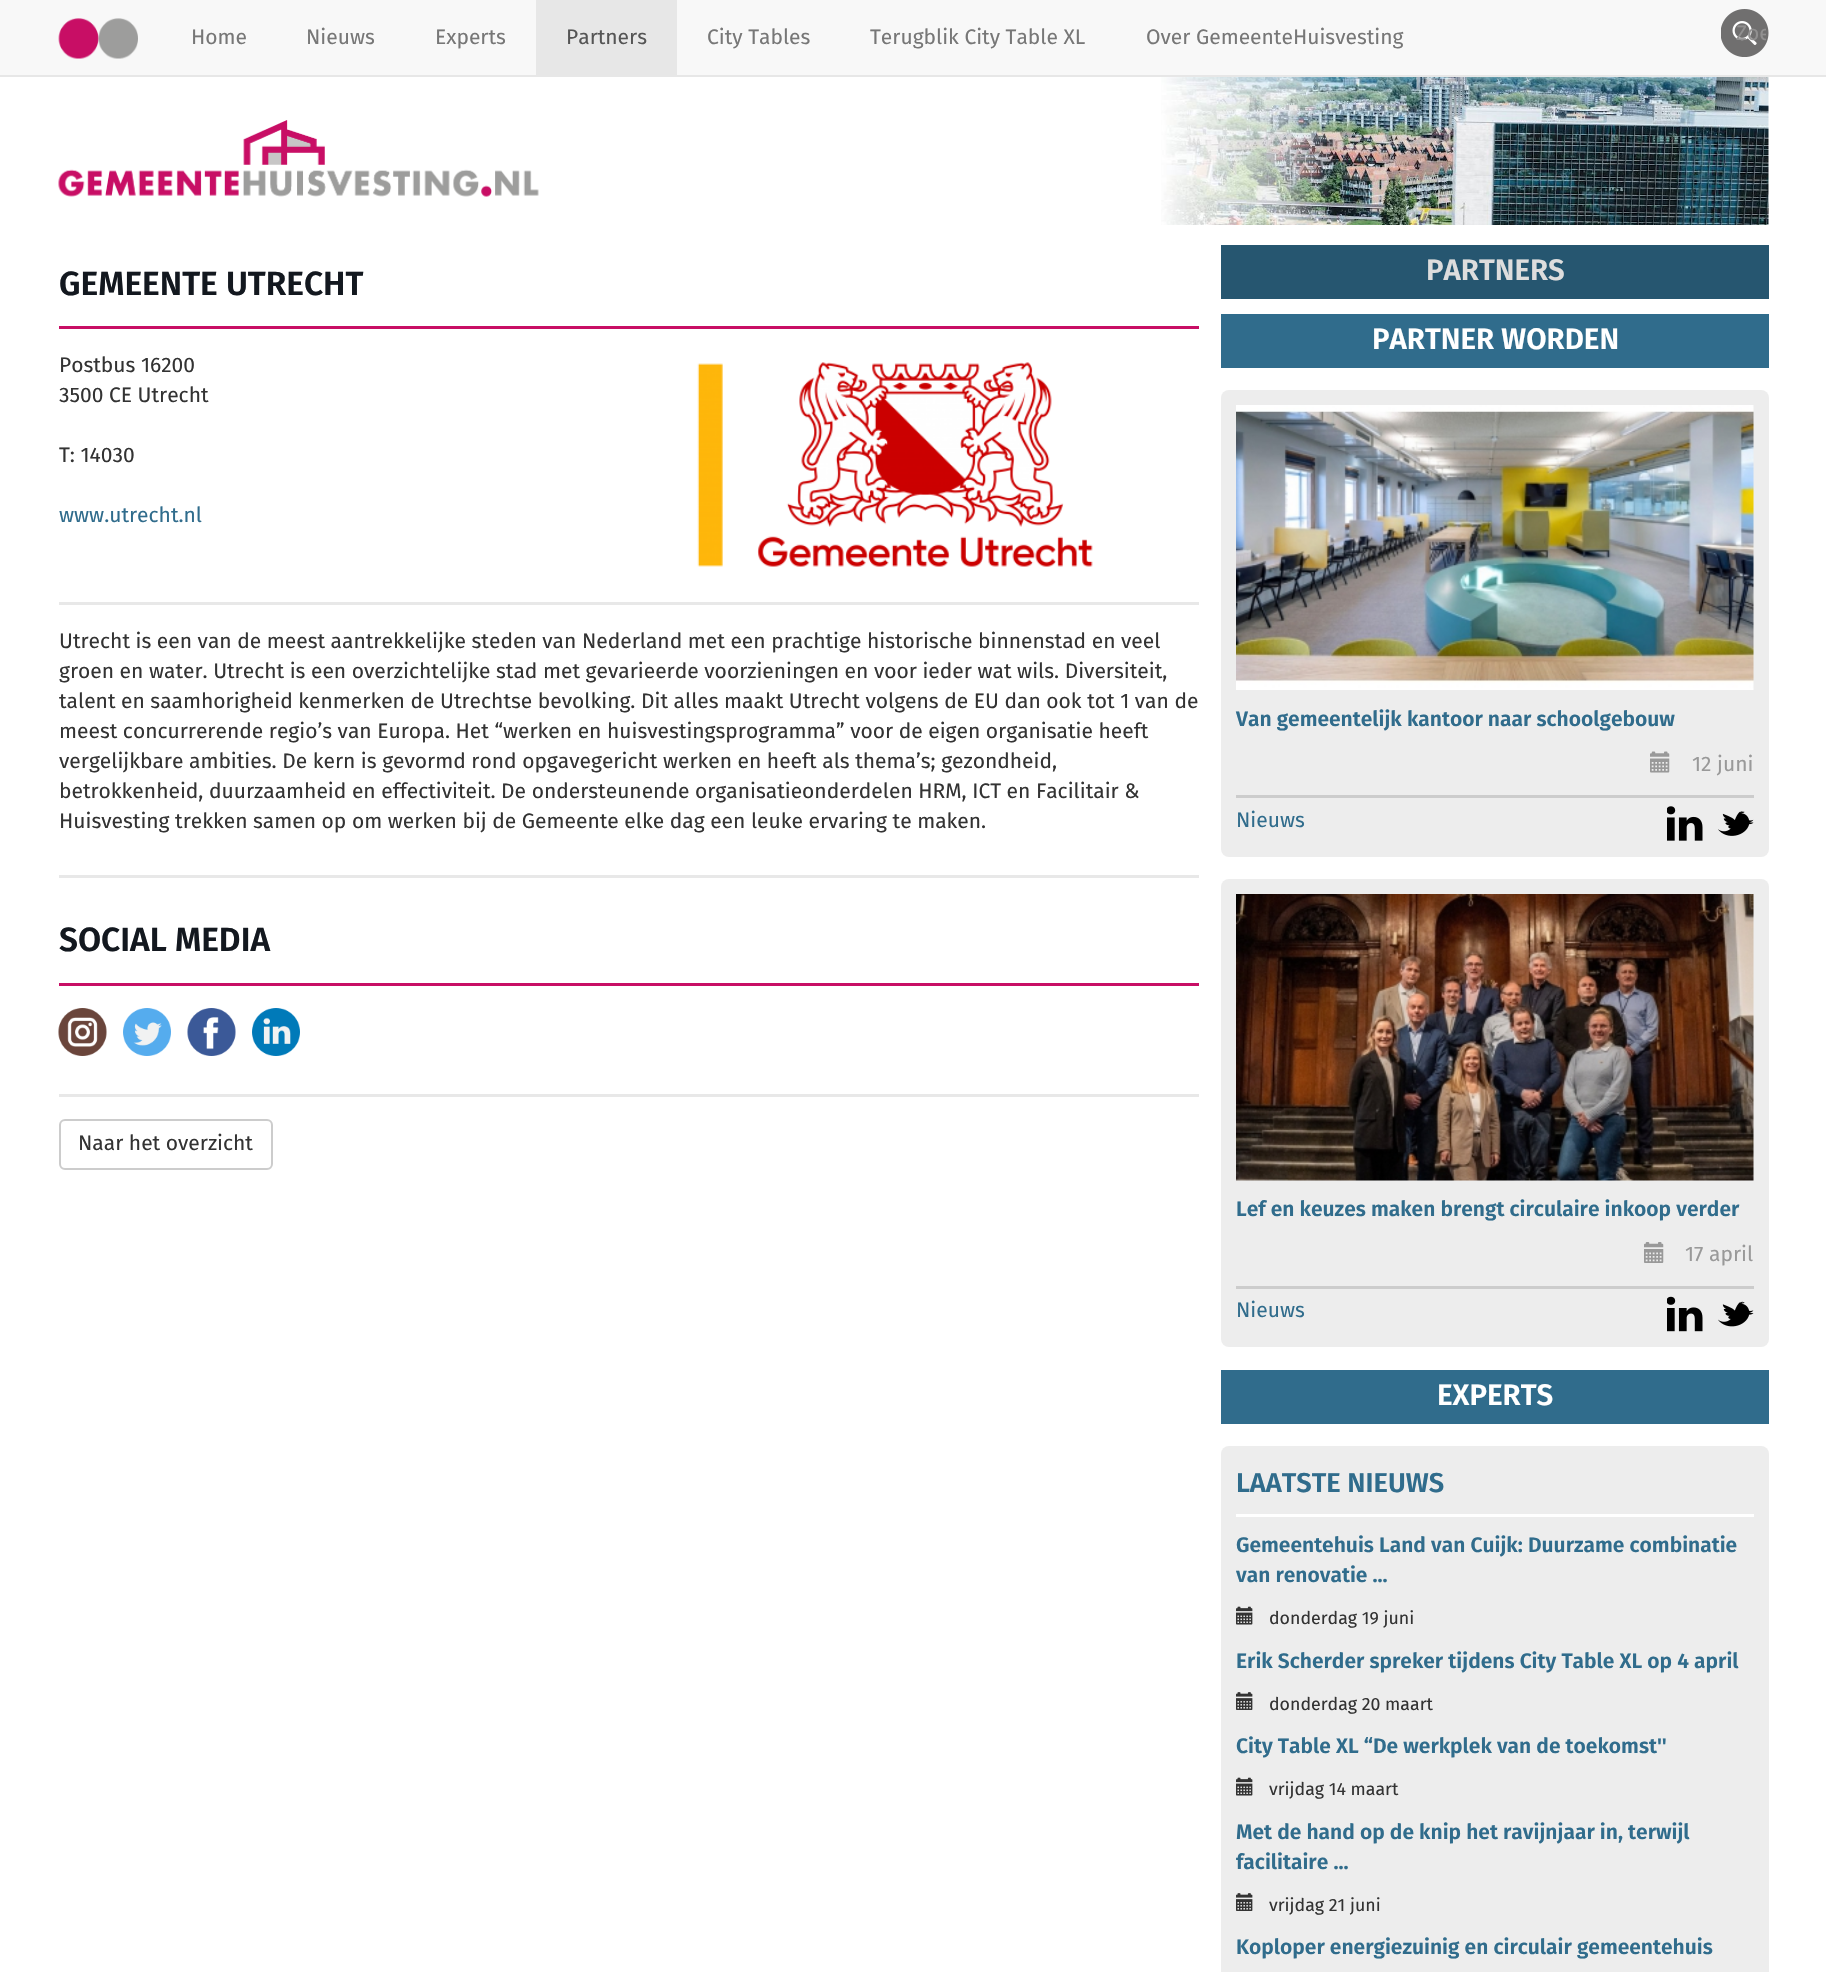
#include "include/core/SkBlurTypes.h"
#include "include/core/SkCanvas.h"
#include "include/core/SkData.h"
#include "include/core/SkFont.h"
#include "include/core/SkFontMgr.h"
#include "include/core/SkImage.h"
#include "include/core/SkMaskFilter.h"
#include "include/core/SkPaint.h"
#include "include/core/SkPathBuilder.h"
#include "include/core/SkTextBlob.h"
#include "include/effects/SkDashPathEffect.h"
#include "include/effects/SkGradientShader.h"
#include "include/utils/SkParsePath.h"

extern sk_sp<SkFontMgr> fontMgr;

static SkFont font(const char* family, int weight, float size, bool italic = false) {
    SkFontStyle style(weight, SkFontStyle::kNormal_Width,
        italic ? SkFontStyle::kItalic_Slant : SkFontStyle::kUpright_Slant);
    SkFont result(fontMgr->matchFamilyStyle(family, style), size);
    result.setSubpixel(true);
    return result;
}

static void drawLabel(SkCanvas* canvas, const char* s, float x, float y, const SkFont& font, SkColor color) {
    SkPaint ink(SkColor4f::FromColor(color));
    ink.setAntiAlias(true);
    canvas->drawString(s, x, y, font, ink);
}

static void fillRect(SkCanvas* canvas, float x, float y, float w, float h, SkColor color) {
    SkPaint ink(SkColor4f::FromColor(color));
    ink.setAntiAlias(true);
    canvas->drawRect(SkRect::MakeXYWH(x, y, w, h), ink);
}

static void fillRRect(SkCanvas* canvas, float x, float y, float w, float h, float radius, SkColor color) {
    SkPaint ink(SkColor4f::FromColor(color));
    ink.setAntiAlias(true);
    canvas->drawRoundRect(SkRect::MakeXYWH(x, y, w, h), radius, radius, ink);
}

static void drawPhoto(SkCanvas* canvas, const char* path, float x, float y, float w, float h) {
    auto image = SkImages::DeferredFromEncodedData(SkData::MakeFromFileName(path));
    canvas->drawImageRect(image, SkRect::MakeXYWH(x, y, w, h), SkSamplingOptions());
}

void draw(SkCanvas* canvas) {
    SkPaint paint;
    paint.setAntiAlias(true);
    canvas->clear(0xFFFFFFFF);
    fillRect(canvas, 0, 0, 1826, 75, 0xFFF8F8F8);
    fillRect(canvas, 0, 75, 1826, 2, 0xFFE7E7E7);
    drawPhoto(canvas, "assets/img1.png", 58, 18, 80, 41);
    SkFont font1 = font("Fira Sans", 400, 21);
    drawLabel(canvas, "Home", 191, 44, font1, 0xFF777777);
    drawLabel(canvas, "Nieuws", 306, 44, font1, 0xFF777777);
    drawLabel(canvas, "Experts", 435, 44, font1, 0xFF777777);
    fillRect(canvas, 536, 0, 141, 75, 0xFFE7E7E7);
    drawLabel(canvas, "Partners", 566, 44, font1, 0xFF555555);
    drawLabel(canvas, "City Tables", 707, 44, font1, 0xFF777777);
    drawLabel(canvas, "Terugblik City Table XL", 870, 44, font1, 0xFF777777);
    drawLabel(canvas, "Over GemeenteHuisvesting", 1146, 44, font1, 0xFF777777);
    drawPhoto(canvas, "assets/img2.png", 1721, 9, 48, 48);
    canvas->save();
    canvas->clipRect(SkRect::MakeXYWH(1736, 21, 30, 26));
    drawLabel(canvas, "Zoe", 1736, 40, font1, 0xFF919090);
    canvas->restore();
    drawPhoto(canvas, "assets/img3.png", 1161, 77, 608, 148);
    drawPhoto(canvas, "assets/img4.png", 58, 120, 481, 77);
    fillRect(canvas, 59, 326, 1140, 3, 0xFFC80E65);
    SkFont font2 = font("Fira Sans", 600, 33.5f);
    drawLabel(canvas, "GEMEENTE UTRECHT", 59, 295, font2, 0xFF13181F);
    fillRect(canvas, 59, 602, 1140, 3, 0xFFE8E8E8);
    drawLabel(canvas, "Postbus 16200", 59, 372, font1, 0xFF333333);
    drawLabel(canvas, "3500 CE Utrecht", 59, 402, font1, 0xFF333333);
    drawLabel(canvas, "T: 14030", 59, 462, font1, 0xFF333333);
    drawLabel(canvas, "www.utrecht.nl", 59, 522, font1, 0xFF306C8C);
    drawPhoto(canvas, "assets/img5.png", 697, 362, 396, 205);
    fillRect(canvas, 59, 875, 1140, 3, 0xFFE8E8E8);
    drawLabel(canvas, "Utrecht is een van de meest aantrekkelijke steden van Nederland met een prachtige historische binnenstad en veel", 59, 648, font1, 0xFF333333);
    drawLabel(canvas, "groen en water. Utrecht is een overzichtelijke stad met gevarieerde voorzieningen en voor ieder wat wils. Diversiteit,", 59, 678, font1, 0xFF333333);
    drawLabel(canvas, "talent en saamhorigheid kenmerken de Utrechtse bevolking. Dit alles maakt Utrecht volgens de EU dan ook tot 1 van de", 59, 708, font1, 0xFF333333);
    drawLabel(canvas, "meest concurrerende regio’s van Europa. Het “werken en huisvestingsprogramma” voor de eigen organisatie heeft", 59, 738, font1, 0xFF333333);
    drawLabel(canvas, "vergelijkbare ambities. De kern is gevormd rond opgavegericht werken en heeft als thema’s; gezondheid,", 59, 768, font1, 0xFF333333);
    drawLabel(canvas, "betrokkenheid, duurzaamheid en effectiviteit. De ondersteunende organisatieonderdelen HRM, ICT en Facilitair &", 59, 798, font1, 0xFF333333);
    drawLabel(canvas, "Huisvesting trekken samen op om werken bij de Gemeente elke dag een leuke ervaring te maken.", 59, 828, font1, 0xFF333333);
    fillRect(canvas, 59, 1094, 1140, 3, 0xFFE8E8E8);
    fillRect(canvas, 59, 983, 1140, 3, 0xFFC80E65);
    drawLabel(canvas, "SOCIAL MEDIA", 59, 951, font2, 0xFF13181F);
    drawPhoto(canvas, "assets/img6.png", 58, 1008, 49, 48);
    drawPhoto(canvas, "assets/img7.png", 123, 1008, 48, 48);
    drawPhoto(canvas, "assets/img8.png", 187, 1008, 49, 48);
    drawPhoto(canvas, "assets/img9.png", 252, 1008, 48, 48);
    paint.setStroke(true);
    paint.setStrokeWidth(2);
    paint.setColor(0xFFCCCCCC);
    canvas->drawRoundRect(SkRect::MakeXYWH(60, 1120, 212, 49), 5, 5, paint);
    drawLabel(canvas, "Naar het overzicht", 78, 1150, font1, 0xFF333333);
    fillRect(canvas, 1221, 245, 548, 54, 0xFF265670);
    SkFont font3 = font("Fira Sans", 600, 29.5f);
    drawLabel(canvas, "PARTNERS", 1426, 280, font3, 0xFFDDDDDD);
    fillRect(canvas, 1221, 314, 548, 54, 0xFF306C8C);
    drawLabel(canvas, "PARTNER WORDEN", 1372, 349, font3, 0xFFFFFFFF);
    fillRRect(canvas, 1221, 390, 548, 467, 8, 0xFFEDEDED);
    drawPhoto(canvas, "assets/img10.png", 1236, 405, 518, 285);
    fillRect(canvas, 1236, 795, 518, 3, 0xFFCCCCCC);
    SkFont font4 = font("Fira Sans", 600, 21);
    drawLabel(canvas, "Van gemeentelijk kantoor naar schoolgebouw", 1236, 726, font4, 0xFF306C8C);
    drawPhoto(canvas, "assets/img11.png", 1650, 751, 20, 22);
    drawLabel(canvas, "12 juni", 1692, 771, font1, 0xFF999999);
    drawLabel(canvas, "Nieuws", 1236, 827, font1, 0xFF306C8C);
    drawPhoto(canvas, "assets/img12.png", 1667, 806, 36, 35);
    drawPhoto(canvas, "assets/img13.png", 1718, 811, 36, 25);
    fillRRect(canvas, 1221, 879, 548, 468, 8, 0xFFEDEDED);
    drawPhoto(canvas, "assets/img14.png", 1236, 894, 518, 287);
    fillRect(canvas, 1236, 1286, 518, 3, 0xFFCCCCCC);
    drawLabel(canvas, "Lef en keuzes maken brengt circulaire inkoop verder", 1236, 1216, font4, 0xFF306C8C);
    drawPhoto(canvas, "assets/img15.png", 1644, 1242, 20, 21);
    drawLabel(canvas, "17 april", 1685, 1261, font1, 0xFF999999);
    drawLabel(canvas, "Nieuws", 1236, 1317, font1, 0xFF306C8C);
    drawPhoto(canvas, "assets/img16.png", 1667, 1296, 36, 36);
    drawPhoto(canvas, "assets/img17.png", 1718, 1301, 36, 26);
    fillRect(canvas, 1221, 1370, 548, 54, 0xFF306C8C);
    drawLabel(canvas, "EXPERTS", 1437, 1405, font3, 0xFFFFFFFF);
    fillRRect(canvas, 1221, 1446, 548, 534, 8, 0xFFEDEDED);
    fillRect(canvas, 1236, 1514, 518, 3, 0xFFFFFFFF);
    SkFont font5 = font("Fira Sans", 600, 27.25f);
    drawLabel(canvas, "LAATSTE NIEUWS", 1236, 1492, font5, 0xFF306C8C);
    drawLabel(canvas, "Gemeentehuis Land van Cuijk: Duurzame combinatie", 1236, 1552, font4, 0xFF306C8C);
    drawLabel(canvas, "van renovatie ...", 1236, 1582, font4, 0xFF306C8C);
    drawPhoto(canvas, "assets/img18.png", 1236, 1606, 17, 19);
    SkFont font6 = font("Fira Sans", 400, 17.75f);
    drawLabel(canvas, "donderdag 19 juni", 1269, 1624, font6, 0xFF333333);
    drawLabel(canvas, "Erik Scherder spreker tijdens City Table XL op 4 april", 1236, 1668, font4, 0xFF306C8C);
    drawPhoto(canvas, "assets/img19.png", 1236, 1692, 17, 18);
    drawLabel(canvas, "donderdag 20 maart", 1269, 1710, font6, 0xFF333333);
    drawLabel(canvas, "City Table XL “De werkplek van de toekomst''", 1236, 1753, font4, 0xFF306C8C);
    drawPhoto(canvas, "assets/img18.png", 1236, 1777, 17, 19);
    drawLabel(canvas, "vrijdag 14 maart", 1269, 1795, font6, 0xFF333333);
    drawLabel(canvas, "Met de hand op de knip het ravijnjaar in, terwijl", 1236, 1839, font4, 0xFF306C8C);
    drawLabel(canvas, "facilitaire ...", 1236, 1869, font4, 0xFF306C8C);
    drawPhoto(canvas, "assets/img19.png", 1236, 1893, 17, 18);
    drawLabel(canvas, "vrijdag 21 juni", 1269, 1911, font6, 0xFF333333);
    drawLabel(canvas, "Koploper energiezuinig en circulair gemeentehuis", 1236, 1954, font4, 0xFF306C8C);
}
